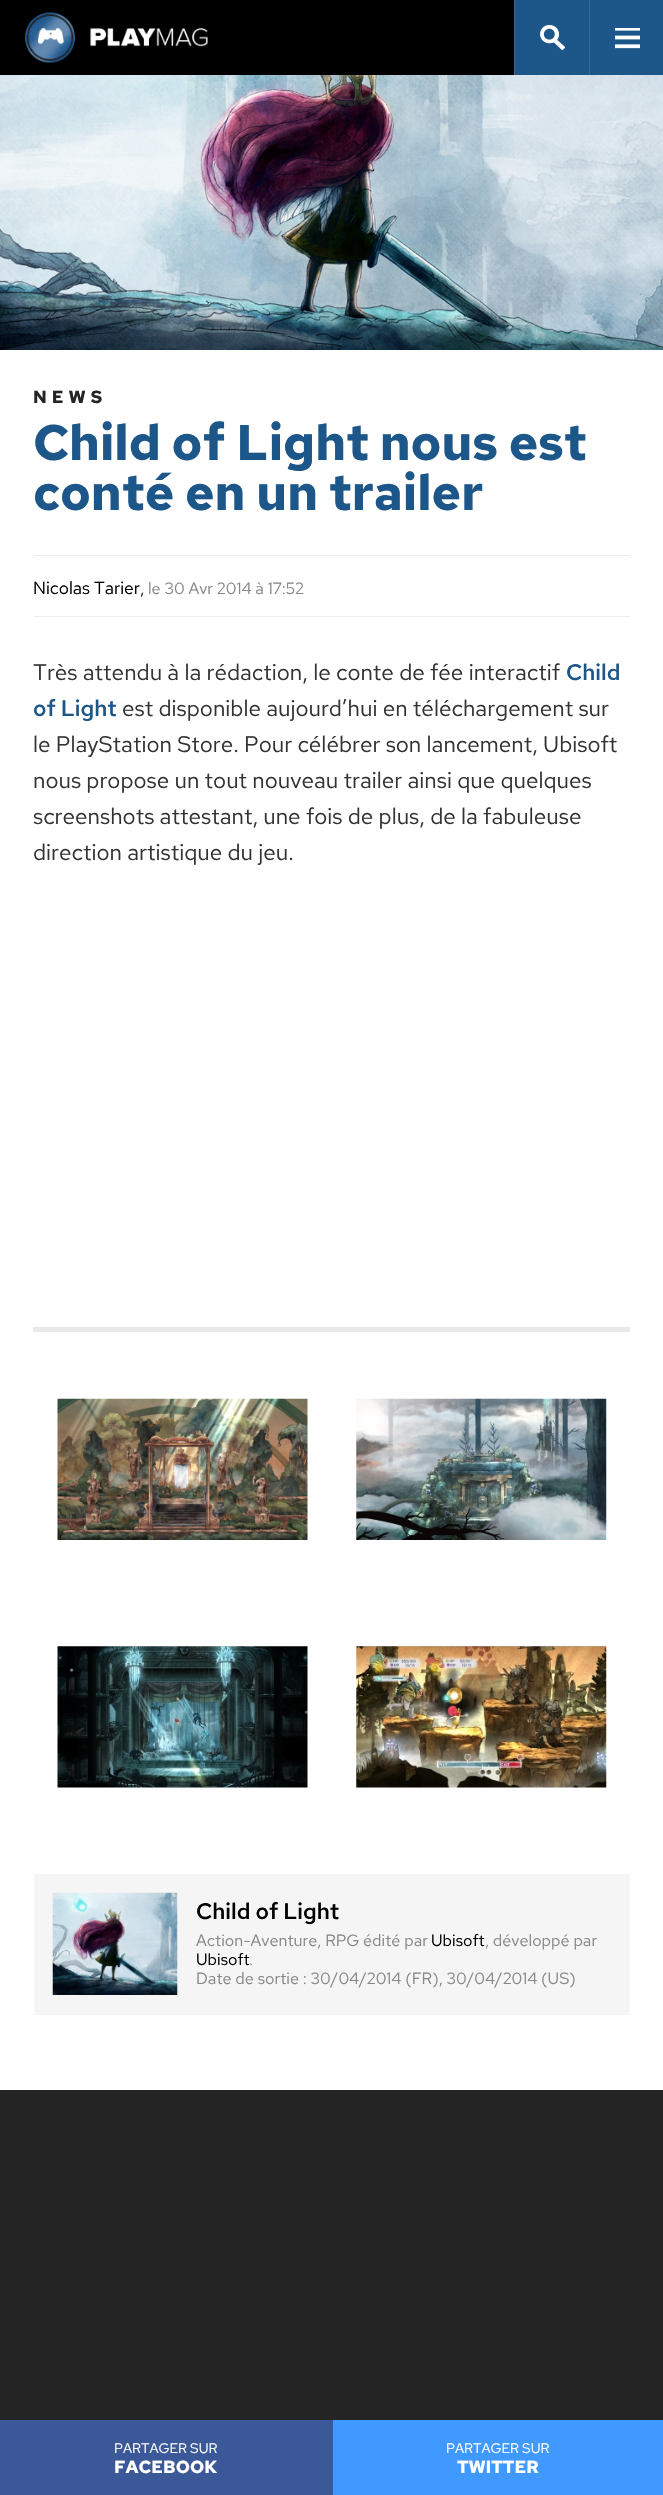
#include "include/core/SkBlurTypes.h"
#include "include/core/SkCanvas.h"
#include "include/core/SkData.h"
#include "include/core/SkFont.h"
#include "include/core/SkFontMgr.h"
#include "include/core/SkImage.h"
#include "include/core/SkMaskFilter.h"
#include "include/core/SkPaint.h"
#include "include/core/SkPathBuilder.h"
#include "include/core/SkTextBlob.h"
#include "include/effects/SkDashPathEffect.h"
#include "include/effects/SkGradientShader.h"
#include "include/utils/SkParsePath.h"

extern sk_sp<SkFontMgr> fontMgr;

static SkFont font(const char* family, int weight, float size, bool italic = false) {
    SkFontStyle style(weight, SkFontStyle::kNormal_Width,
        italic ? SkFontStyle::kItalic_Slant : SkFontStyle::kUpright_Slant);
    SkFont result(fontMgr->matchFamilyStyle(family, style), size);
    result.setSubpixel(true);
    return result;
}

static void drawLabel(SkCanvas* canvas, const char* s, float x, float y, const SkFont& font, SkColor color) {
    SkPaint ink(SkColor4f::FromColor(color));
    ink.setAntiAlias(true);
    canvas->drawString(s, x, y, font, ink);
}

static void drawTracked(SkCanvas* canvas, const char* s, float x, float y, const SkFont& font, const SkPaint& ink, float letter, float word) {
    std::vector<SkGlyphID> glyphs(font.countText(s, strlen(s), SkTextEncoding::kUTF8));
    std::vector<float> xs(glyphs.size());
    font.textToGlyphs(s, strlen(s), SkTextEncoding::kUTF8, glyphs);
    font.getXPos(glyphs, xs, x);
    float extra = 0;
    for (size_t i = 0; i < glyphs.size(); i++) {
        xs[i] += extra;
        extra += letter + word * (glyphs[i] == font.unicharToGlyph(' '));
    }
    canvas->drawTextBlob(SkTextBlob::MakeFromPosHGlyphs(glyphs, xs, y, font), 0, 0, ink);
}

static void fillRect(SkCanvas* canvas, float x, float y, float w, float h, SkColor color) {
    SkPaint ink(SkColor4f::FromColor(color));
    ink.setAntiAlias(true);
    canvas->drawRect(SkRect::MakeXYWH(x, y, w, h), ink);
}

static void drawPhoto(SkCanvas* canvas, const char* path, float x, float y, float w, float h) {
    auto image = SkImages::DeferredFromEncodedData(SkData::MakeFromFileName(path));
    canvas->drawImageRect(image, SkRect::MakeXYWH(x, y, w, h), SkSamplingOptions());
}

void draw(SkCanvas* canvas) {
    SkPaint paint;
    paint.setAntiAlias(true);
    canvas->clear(0xFFFFFFFF);
    fillRect(canvas, 0, 0, 514, 75, 0xFF000000);
    drawPhoto(canvas, "assets/img1.png", 25, 12, 183, 51);
    fillRect(canvas, 515, 0, 74, 75, 0xFF1D578A);
    fillRect(canvas, 514, 0, 1, 75, 0xFF346896);
    drawPhoto(canvas, "assets/img2.png", 540, 25, 25, 25);
    fillRect(canvas, 590, 0, 73, 75, 0xFF1D578A);
    fillRect(canvas, 589, 0, 1, 75, 0xFF346896);
    drawPhoto(canvas, "assets/img3.png", 615, 28, 25, 21);
    drawPhoto(canvas, "assets/img4.png", 0, 75, 663, 275);
    SkFont font1 = font("Red Hat Text", 700, 17.5f);
    paint.setColor(0xFF242424);
    drawTracked(canvas, "NEWS", 33, 403, font1, paint, 5, 0);
    SkFont font2 = font("Red Hat Text", 700, 50);
    drawLabel(canvas, "Child of Light nous est", 33, 460, font2, 0xFF1D578A);
    drawLabel(canvas, "conté en un trailer", 33, 510, font2, 0xFF1D578A);
    fillRect(canvas, 34, 555, 596, 1, 0xFFEEEEEE);
    fillRect(canvas, 34, 616, 596, 1, 0xFFEEEEEE);
    SkFont font3 = font("Red Hat Text", 400, 17.5f);
    drawLabel(canvas, "Nicolas Tarier", 33, 594, font3, 0xFF000000);
    drawLabel(canvas, ",", 140, 594, font3, 0xFF242424);
    SkFont font4 = font("Red Hat Text", 400, 16.25f);
    drawLabel(canvas, "le 30 Avr 2014 à 17:52", 148, 594, font4, 0xFF888888);
    SkFont font5 = font("Red Hat Text", 400, 22.5f);
    drawLabel(canvas, "Très attendu à la rédaction, le conte de fée interactif", 33, 680, font5, 0xFF333333);
    SkFont font6 = font("Red Hat Text", 600, 22.5f);
    drawLabel(canvas, "Child", 566, 680, font6, 0xFF1D578A);
    drawLabel(canvas, "of Light", 33, 716, font6, 0xFF1D578A);
    drawLabel(canvas, "est disponible aujourd’hui en téléchargement sur", 122, 716, font5, 0xFF333333);
    drawLabel(canvas, "le PlayStation Store. Pour célébrer son lancement, Ubisoft", 33, 752, font5, 0xFF333333);
    drawLabel(canvas, "nous propose un tout nouveau trailer ainsi que quelques", 33, 788, font5, 0xFF333333);
    drawLabel(canvas, "screenshots attestant, une fois de plus, de la fabuleuse", 33, 824, font5, 0xFF333333);
    drawLabel(canvas, "direction artistique du jeu.", 33, 860, font5, 0xFF333333);
    fillRect(canvas, 33, 1327, 597, 5, 0xFFE8E8E8);
    drawPhoto(canvas, "assets/img5.png", 57, 1398, 251, 142);
    drawPhoto(canvas, "assets/img6.png", 356, 1398, 251, 142);
    drawPhoto(canvas, "assets/img7.png", 57, 1646, 251, 142);
    drawPhoto(canvas, "assets/img8.png", 356, 1646, 251, 142);
    fillRect(canvas, 34, 1874, 596, 141, 0xFFF5F5F5);
    drawPhoto(canvas, "assets/img9.png", 52, 1892, 126, 103);
    drawLabel(canvas, "Child of Light", 196, 1919, font6, 0xFF000000);
    drawLabel(canvas, "Action-Aventure, RPG édité par", 196, 1946, font4, 0xFF888888);
    drawLabel(canvas, "Ubisoft", 431, 1946, font4, 0xFF000000);
    drawLabel(canvas, ", développé par", 485, 1946, font4, 0xFF888888);
    drawLabel(canvas, "Ubisoft", 196, 1965, font4, 0xFF000000);
    drawLabel(canvas, ".", 249, 1965, font4, 0xFF888888);
    drawLabel(canvas, "Date de sortie : 30/04/2014 (FR), 30/04/2014 (US)", 196, 1984, font4, 0xFF888888);
    fillRect(canvas, 0, 2420, 333, 75, 0xFF3B5998);
    SkFont font7 = font("Red Hat Text", 400, 13.75f);
    drawLabel(canvas, "PARTAGER SUR", 114, 2453, font7, 0xFFFFFFFF);
    drawLabel(canvas, "FACEBOOK", 114, 2473, font1, 0xFFFFFFFF);
    fillRect(canvas, 333, 2420, 330, 75, 0xFF4099FF);
    drawLabel(canvas, "PARTAGER SUR", 446, 2453, font7, 0xFFFFFFFF);
    drawLabel(canvas, "TWITTER", 457, 2473, font1, 0xFFFFFFFF);
    fillRect(canvas, 0, 2090, 663, 330, 0xFF242424);
}
